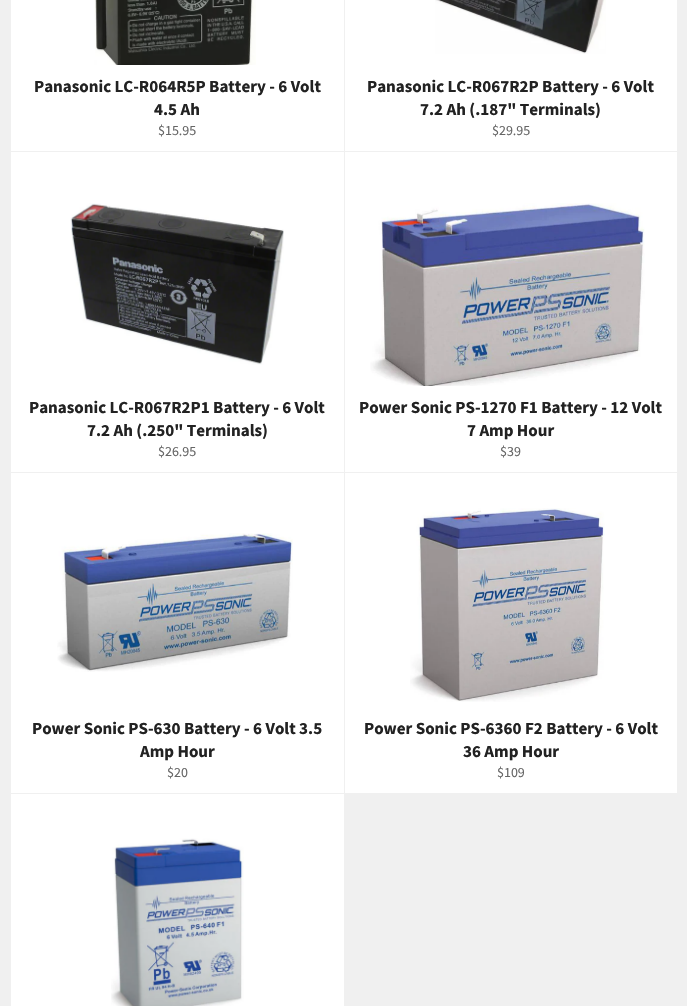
#include "include/core/SkBlurTypes.h"
#include "include/core/SkCanvas.h"
#include "include/core/SkData.h"
#include "include/core/SkFont.h"
#include "include/core/SkFontMgr.h"
#include "include/core/SkImage.h"
#include "include/core/SkMaskFilter.h"
#include "include/core/SkPaint.h"
#include "include/core/SkPathBuilder.h"
#include "include/core/SkTextBlob.h"
#include "include/effects/SkDashPathEffect.h"
#include "include/effects/SkGradientShader.h"
#include "include/utils/SkParsePath.h"

extern sk_sp<SkFontMgr> fontMgr;

static SkFont font(const char* family, int weight, float size, bool italic = false) {
    SkFontStyle style(weight, SkFontStyle::kNormal_Width,
        italic ? SkFontStyle::kItalic_Slant : SkFontStyle::kUpright_Slant);
    SkFont result(fontMgr->matchFamilyStyle(family, style), size);
    result.setSubpixel(true);
    return result;
}

static void drawLabel(SkCanvas* canvas, const char* s, float x, float y, const SkFont& font, SkColor color) {
    SkPaint ink(SkColor4f::FromColor(color));
    ink.setAntiAlias(true);
    canvas->drawString(s, x, y, font, ink);
}

static void fillRect(SkCanvas* canvas, float x, float y, float w, float h, SkColor color) {
    SkPaint ink(SkColor4f::FromColor(color));
    ink.setAntiAlias(true);
    canvas->drawRect(SkRect::MakeXYWH(x, y, w, h), ink);
}

static void drawPhoto(SkCanvas* canvas, const char* path, float x, float y, float w, float h) {
    auto image = SkImages::DeferredFromEncodedData(SkData::MakeFromFileName(path));
    canvas->drawImageRect(image, SkRect::MakeXYWH(x, y, w, h), SkSamplingOptions());
}

void draw(SkCanvas* canvas) {
    SkPaint paint;
    paint.setAntiAlias(true);
    canvas->clear(0xFFF0F0F0);
    fillRect(canvas, 11, 0, 333, 151, 0xFFFFFFFF);
    drawPhoto(canvas, "assets/img1.png", 94, 0, 162, 65);
    SkFont font1 = font("Source Sans Pro", 700, 17);
    drawLabel(canvas, "Panasonic LC-R064R5P Battery - 6 Volt", 34, 92, font1, 0xFF222222);
    drawLabel(canvas, "4.5 Ah", 154, 115, font1, 0xFF222222);
    SkFont font2 = font("Source Sans Pro", 400, 14);
    drawLabel(canvas, "$15.95", 158, 135, font2, 0xFF666666);
    fillRect(canvas, 345, 0, 332, 151, 0xFFFFFFFF);
    drawPhoto(canvas, "assets/img2.png", 435, 0, 171, 54);
    drawLabel(canvas, "Panasonic LC-R067R2P Battery - 6 Volt", 367, 92, font1, 0xFF222222);
    drawLabel(canvas, "7.2 Ah (.187\" Terminals)", 420, 115, font1, 0xFF222222);
    drawLabel(canvas, "$29.95", 492, 135, font2, 0xFF666666);
    fillRect(canvas, 11, 152, 333, 320, 0xFFFFFFFF);
    drawPhoto(canvas, "assets/img3.png", 70, 203, 214, 162);
    drawLabel(canvas, "Panasonic LC-R067R2P1 Battery - 6 Volt", 29, 413, font1, 0xFF222222);
    drawLabel(canvas, "7.2 Ah (.250\" Terminals)", 87, 436, font1, 0xFF222222);
    drawLabel(canvas, "$26.95", 158, 456, font2, 0xFF666666);
    fillRect(canvas, 345, 152, 332, 320, 0xFFFFFFFF);
    drawPhoto(canvas, "assets/img4.png", 370, 203, 275, 183);
    drawLabel(canvas, "Power Sonic PS-1270 F1 Battery - 12 Volt", 359, 413, font1, 0xFF222222);
    drawLabel(canvas, "7 Amp Hour", 467, 436, font1, 0xFF222222);
    drawLabel(canvas, "$39", 500, 456, font2, 0xFF666666);
    fillRect(canvas, 11, 473, 333, 320, 0xFFFFFFFF);
    drawPhoto(canvas, "assets/img5.png", 57, 533, 236, 139);
    drawLabel(canvas, "Power Sonic PS-630 Battery - 6 Volt 3.5", 32, 734, font1, 0xFF222222);
    drawLabel(canvas, "Amp Hour", 140, 757, font1, 0xFF222222);
    drawLabel(canvas, "$20", 167, 777, font2, 0xFF666666);
    fillRect(canvas, 345, 473, 332, 320, 0xFFFFFFFF);
    drawPhoto(canvas, "assets/img6.png", 410, 508, 195, 194);
    drawLabel(canvas, "Power Sonic PS-6360 F2 Battery - 6 Volt", 364, 734, font1, 0xFF222222);
    drawLabel(canvas, "36 Amp Hour", 463, 757, font1, 0xFF222222);
    drawLabel(canvas, "$109", 497, 777, font2, 0xFF666666);
    fillRect(canvas, 11, 794, 333, 212, 0xFFFFFFFF);
    drawPhoto(canvas, "assets/img7.png", 111, 838, 133, 168);
}
